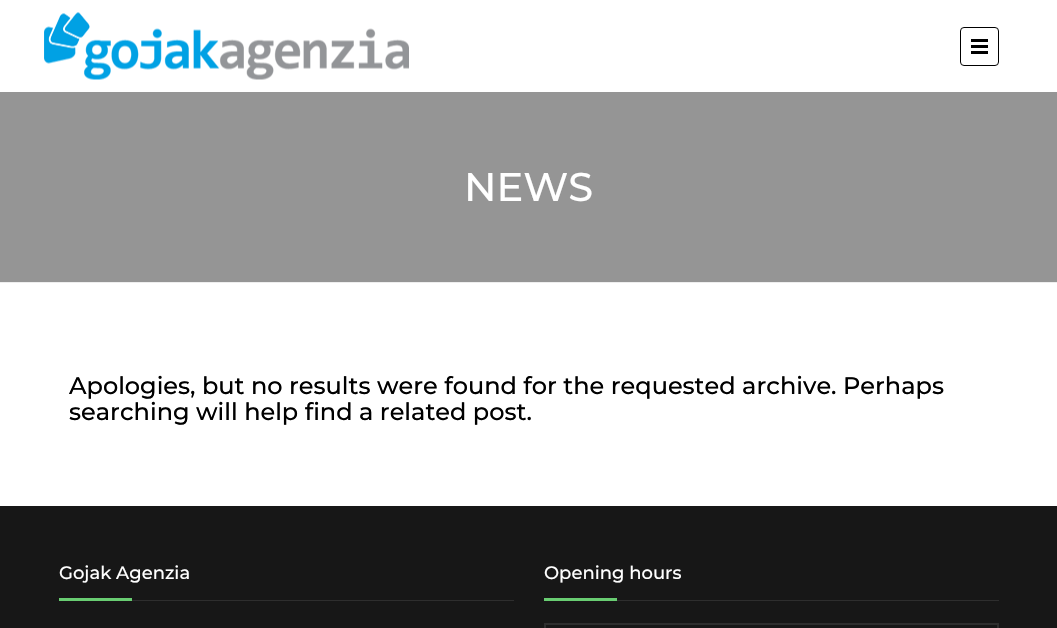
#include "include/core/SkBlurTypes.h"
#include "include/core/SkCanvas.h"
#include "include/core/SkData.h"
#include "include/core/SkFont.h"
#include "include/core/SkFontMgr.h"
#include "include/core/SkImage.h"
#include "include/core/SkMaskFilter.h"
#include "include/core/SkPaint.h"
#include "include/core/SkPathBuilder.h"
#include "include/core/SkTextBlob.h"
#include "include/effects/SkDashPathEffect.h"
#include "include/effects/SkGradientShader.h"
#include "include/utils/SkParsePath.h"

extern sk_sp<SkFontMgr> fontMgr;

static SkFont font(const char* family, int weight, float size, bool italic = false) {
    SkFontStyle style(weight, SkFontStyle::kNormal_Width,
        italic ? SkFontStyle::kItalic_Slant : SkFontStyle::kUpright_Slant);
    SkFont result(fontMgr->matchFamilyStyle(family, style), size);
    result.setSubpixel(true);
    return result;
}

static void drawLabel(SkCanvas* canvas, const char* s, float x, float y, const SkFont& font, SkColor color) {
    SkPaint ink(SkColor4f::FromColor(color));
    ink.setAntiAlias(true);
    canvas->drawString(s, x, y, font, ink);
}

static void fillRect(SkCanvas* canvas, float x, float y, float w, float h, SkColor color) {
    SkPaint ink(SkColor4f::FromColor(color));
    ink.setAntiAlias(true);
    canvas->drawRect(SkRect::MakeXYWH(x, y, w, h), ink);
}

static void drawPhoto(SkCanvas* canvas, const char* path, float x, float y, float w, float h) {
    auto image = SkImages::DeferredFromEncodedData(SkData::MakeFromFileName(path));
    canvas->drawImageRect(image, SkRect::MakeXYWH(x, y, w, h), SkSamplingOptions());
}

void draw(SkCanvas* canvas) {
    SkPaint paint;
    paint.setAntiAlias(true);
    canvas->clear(0xFFFFFFFF);
    drawPhoto(canvas, "assets/img1.png", 44, 12, 365, 68);
    paint.setStroke(true);
    paint.setStrokeWidth(1);
    paint.setColor(0xFF000000);
    canvas->drawRoundRect(SkRect::MakeXYWH(960.5f, 27.5f, 38, 38), 3.5f, 3.5f, paint);
    fillRect(canvas, 971, 39, 17, 3, 0xFF000000);
    fillRect(canvas, 971, 45, 17, 3, 0xFF000000);
    fillRect(canvas, 971, 51, 17, 3, 0xFF000000);
    fillRect(canvas, 0, 282, 1057, 1, 0xFFEEEEEE);
    fillRect(canvas, 0, 92, 1057, 190, 0xFF959595);
    SkFont font1 = font("Montserrat", 500, 40);
    drawLabel(canvas, "NEWS", 464, 201, font1, 0xFFFFFFFF);
    SkFont font2 = font("Montserrat", 500, 24);
    drawLabel(canvas, "Apologies, but no results were found for the requested archive. Perhaps", 69, 394, font2, 0xFF000000);
    drawLabel(canvas, "searching will help find a related post.", 69, 420, font2, 0xFF000000);
    fillRect(canvas, 0, 506, 1057, 122, 0xFF171717);
    fillRect(canvas, 132, 600, 382, 1, 0xFF2E2E2E);
    SkFont font3 = font("Montserrat", 500, 18);
    drawLabel(canvas, "Gojak Agenzia", 59, 579, font3, 0xFFFFFFFF);
    fillRect(canvas, 59, 598, 73, 3, 0xFF69CD72);
    fillRect(canvas, 617, 600, 382, 1, 0xFF2E2E2E);
    drawLabel(canvas, "Opening hours", 544, 579, font3, 0xFFFFFFFF);
    fillRect(canvas, 544, 598, 73, 3, 0xFF69CD72);
    paint.setStrokeWidth(2);
    paint.setColor(0xFF2E2E2E);
    canvas->drawRect(SkRect::MakeXYWH(545, 624, 453, 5), paint);
}
